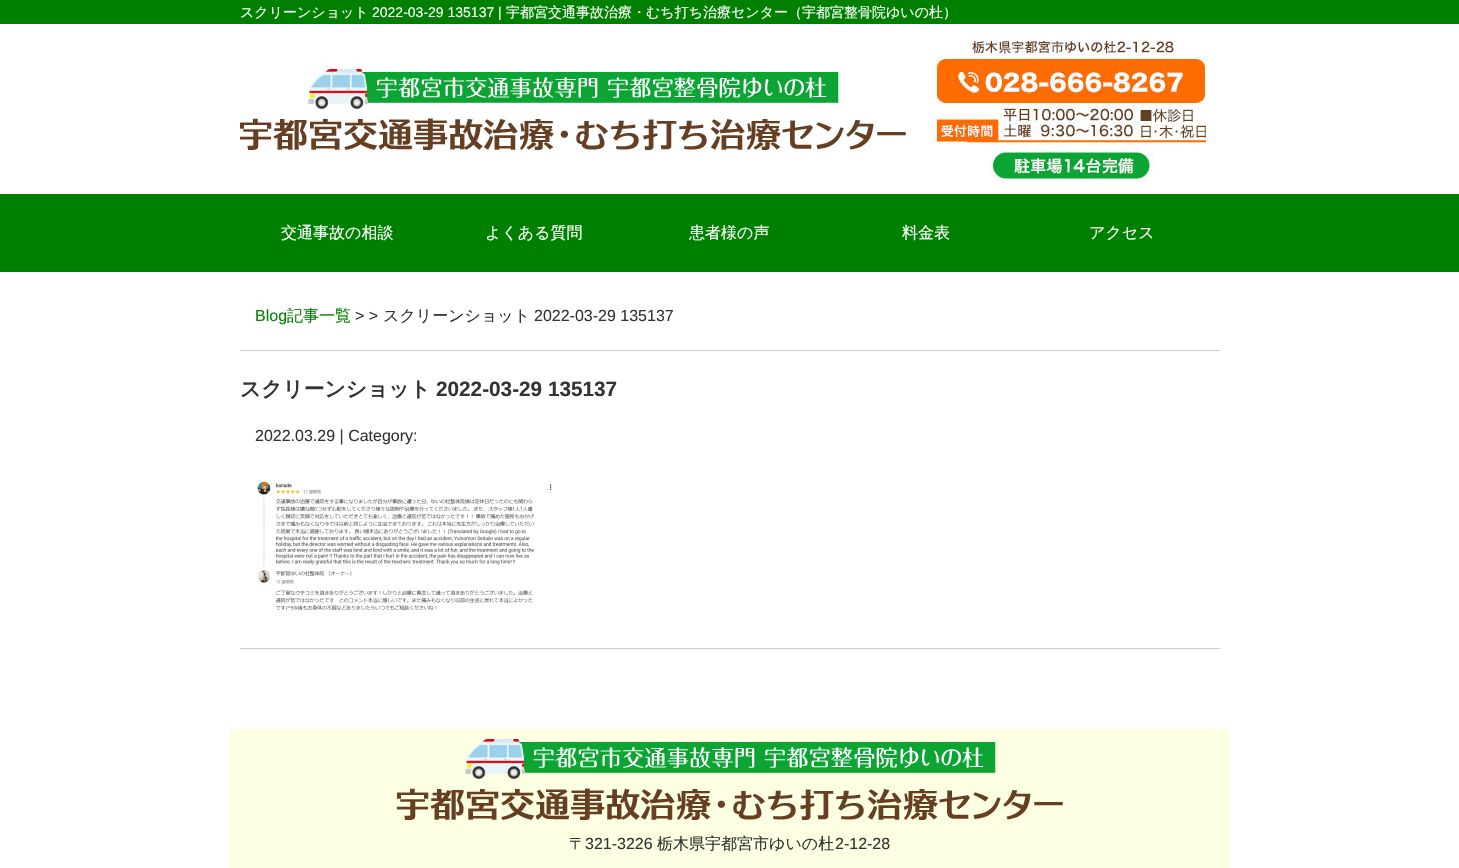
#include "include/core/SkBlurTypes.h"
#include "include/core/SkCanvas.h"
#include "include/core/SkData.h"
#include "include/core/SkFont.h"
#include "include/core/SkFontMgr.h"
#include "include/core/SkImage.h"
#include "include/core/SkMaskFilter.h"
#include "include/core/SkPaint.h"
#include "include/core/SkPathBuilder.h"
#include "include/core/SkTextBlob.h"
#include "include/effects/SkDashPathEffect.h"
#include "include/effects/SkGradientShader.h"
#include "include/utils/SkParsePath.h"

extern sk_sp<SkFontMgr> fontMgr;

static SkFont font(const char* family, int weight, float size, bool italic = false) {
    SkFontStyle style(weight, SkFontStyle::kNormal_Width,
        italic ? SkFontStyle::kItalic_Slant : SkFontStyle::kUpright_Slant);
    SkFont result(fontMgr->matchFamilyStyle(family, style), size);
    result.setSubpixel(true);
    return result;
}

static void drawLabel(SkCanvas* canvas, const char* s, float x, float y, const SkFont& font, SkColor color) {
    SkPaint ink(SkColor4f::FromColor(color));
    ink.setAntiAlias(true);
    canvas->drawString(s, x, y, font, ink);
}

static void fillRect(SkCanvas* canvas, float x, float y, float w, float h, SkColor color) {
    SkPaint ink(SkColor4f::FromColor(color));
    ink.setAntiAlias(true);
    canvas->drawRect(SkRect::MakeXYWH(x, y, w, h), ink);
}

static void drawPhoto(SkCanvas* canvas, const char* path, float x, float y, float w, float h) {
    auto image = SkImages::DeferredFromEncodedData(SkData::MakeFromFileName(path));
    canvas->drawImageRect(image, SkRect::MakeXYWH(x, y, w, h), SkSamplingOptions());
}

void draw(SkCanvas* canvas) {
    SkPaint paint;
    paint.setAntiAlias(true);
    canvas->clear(0xFFFFFFFF);
    fillRect(canvas, 0, 0, 1459, 24, 0xFF008000);
    SkFont font1 = font("WenQuanYi Zen Hei", 500, 14);
    drawLabel(canvas, "スクリーンショット", 240, 17, font1, 0xFFFFFFFF);
    SkFont font2 = font("Liberation Sans", 400, 14);
    drawLabel(canvas, "2022-03-29 135137 |", 372, 17, font2, 0xFFFFFFFF);
    drawLabel(canvas, "宇都宮交通事故治療・むち打ち治療センター（宇都宮整骨院ゆいの杜）", 506, 17, font1, 0xFFFFFFFF);
    drawPhoto(canvas, "assets/img1.png", 240, 69, 666, 81);
    drawPhoto(canvas, "assets/img2.png", 938, 40, 272, 19);
    drawPhoto(canvas, "assets/img3.png", 930, 59, 280, 44);
    drawPhoto(canvas, "assets/img4.png", 930, 103, 280, 80);
    fillRect(canvas, 0, 194, 1459, 78, 0xFF008000);
    SkFont font3 = font("WenQuanYi Zen Hei", 500, 16);
    drawLabel(canvas, "交通事故の相談", 281, 238, font3, 0xFFFFFFFF);
    drawLabel(canvas, "よくある質問", 485, 238, font3, 0xFFFFFFFF);
    drawLabel(canvas, "患者様の声", 689, 238, font3, 0xFFFFFFFF);
    drawLabel(canvas, "料金表", 902, 238, font3, 0xFFFFFFFF);
    drawLabel(canvas, "アクセス", 1089, 238, font3, 0xFFFFFFFF);
    fillRect(canvas, 240, 350, 980, 1, 0xFFCCCCCC);
    SkFont font4 = font("Liberation Sans", 400, 16);
    drawLabel(canvas, "Blog", 255, 321, font4, 0xFF008000);
    drawLabel(canvas, "記事一覧", 287, 321, font3, 0xFF008000);
    drawLabel(canvas, "> >", 355, 321, font4, 0xFF333333);
    drawLabel(canvas, "スクリーンショット", 383, 321, font3, 0xFF333333);
    drawLabel(canvas, "2022-03-29 135137", 534, 321, font4, 0xFF333333);
    SkFont font5 = font("WenQuanYi Zen Hei", 700, 20.75f);
    drawLabel(canvas, "スクリーンショット", 240, 396, font5, 0xFF333333);
    SkFont font6 = font("Liberation Sans", 700, 20.75f);
    drawLabel(canvas, "2022-03-29 135137", 436, 396, font6, 0xFF333333);
    drawLabel(canvas, "2022.03.29 | Category:", 255, 441, font4, 0xFF333333);
    fillRect(canvas, 240, 648, 980, 1, 0xFFCCCCCC);
    drawPhoto(canvas, "assets/img5.png", 257, 481, 295, 130);
    fillRect(canvas, 230, 729, 1000, 139, 0xFFFDFFE2);
    drawPhoto(canvas, "assets/img6.png", 397, 739, 666, 81);
    drawLabel(canvas, "〒", 569, 849, font3, 0xFF333333);
    drawLabel(canvas, "321-3226", 585, 849, font4, 0xFF333333);
    drawLabel(canvas, "栃木県宇都宮市ゆいの杜", 657, 849, font3, 0xFF333333);
    drawLabel(canvas, "2-12-28", 835, 849, font4, 0xFF333333);
}
